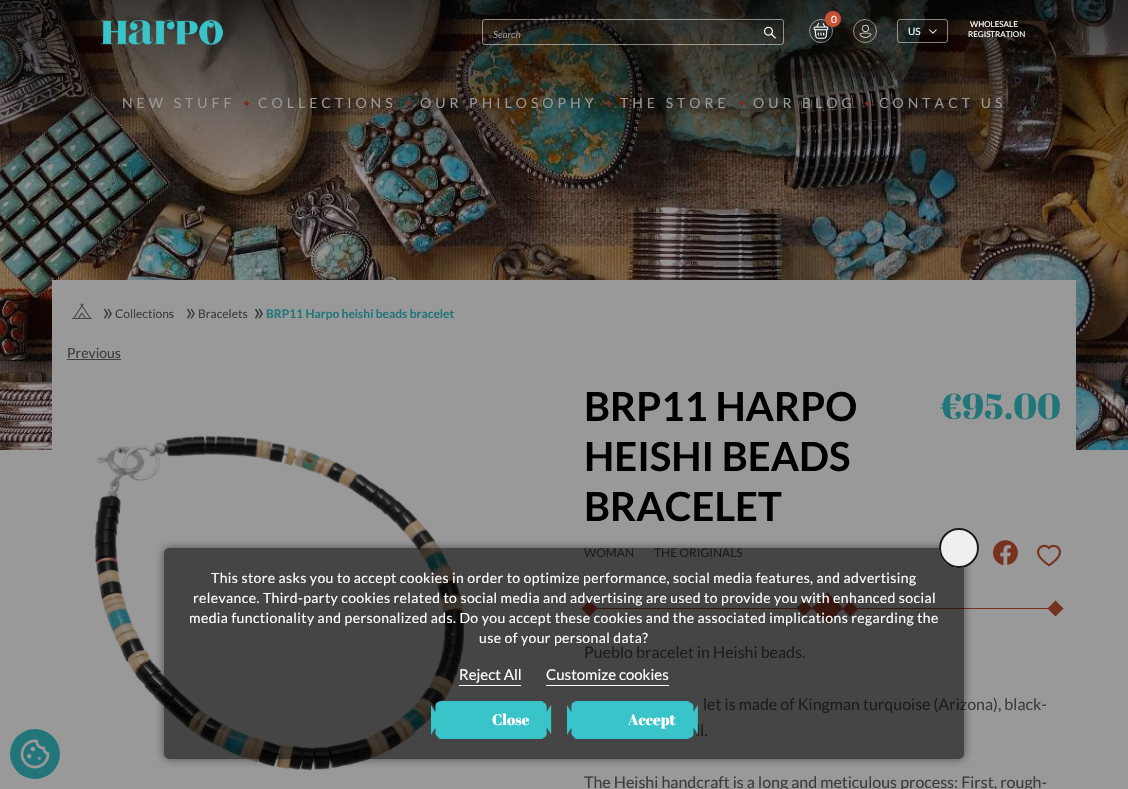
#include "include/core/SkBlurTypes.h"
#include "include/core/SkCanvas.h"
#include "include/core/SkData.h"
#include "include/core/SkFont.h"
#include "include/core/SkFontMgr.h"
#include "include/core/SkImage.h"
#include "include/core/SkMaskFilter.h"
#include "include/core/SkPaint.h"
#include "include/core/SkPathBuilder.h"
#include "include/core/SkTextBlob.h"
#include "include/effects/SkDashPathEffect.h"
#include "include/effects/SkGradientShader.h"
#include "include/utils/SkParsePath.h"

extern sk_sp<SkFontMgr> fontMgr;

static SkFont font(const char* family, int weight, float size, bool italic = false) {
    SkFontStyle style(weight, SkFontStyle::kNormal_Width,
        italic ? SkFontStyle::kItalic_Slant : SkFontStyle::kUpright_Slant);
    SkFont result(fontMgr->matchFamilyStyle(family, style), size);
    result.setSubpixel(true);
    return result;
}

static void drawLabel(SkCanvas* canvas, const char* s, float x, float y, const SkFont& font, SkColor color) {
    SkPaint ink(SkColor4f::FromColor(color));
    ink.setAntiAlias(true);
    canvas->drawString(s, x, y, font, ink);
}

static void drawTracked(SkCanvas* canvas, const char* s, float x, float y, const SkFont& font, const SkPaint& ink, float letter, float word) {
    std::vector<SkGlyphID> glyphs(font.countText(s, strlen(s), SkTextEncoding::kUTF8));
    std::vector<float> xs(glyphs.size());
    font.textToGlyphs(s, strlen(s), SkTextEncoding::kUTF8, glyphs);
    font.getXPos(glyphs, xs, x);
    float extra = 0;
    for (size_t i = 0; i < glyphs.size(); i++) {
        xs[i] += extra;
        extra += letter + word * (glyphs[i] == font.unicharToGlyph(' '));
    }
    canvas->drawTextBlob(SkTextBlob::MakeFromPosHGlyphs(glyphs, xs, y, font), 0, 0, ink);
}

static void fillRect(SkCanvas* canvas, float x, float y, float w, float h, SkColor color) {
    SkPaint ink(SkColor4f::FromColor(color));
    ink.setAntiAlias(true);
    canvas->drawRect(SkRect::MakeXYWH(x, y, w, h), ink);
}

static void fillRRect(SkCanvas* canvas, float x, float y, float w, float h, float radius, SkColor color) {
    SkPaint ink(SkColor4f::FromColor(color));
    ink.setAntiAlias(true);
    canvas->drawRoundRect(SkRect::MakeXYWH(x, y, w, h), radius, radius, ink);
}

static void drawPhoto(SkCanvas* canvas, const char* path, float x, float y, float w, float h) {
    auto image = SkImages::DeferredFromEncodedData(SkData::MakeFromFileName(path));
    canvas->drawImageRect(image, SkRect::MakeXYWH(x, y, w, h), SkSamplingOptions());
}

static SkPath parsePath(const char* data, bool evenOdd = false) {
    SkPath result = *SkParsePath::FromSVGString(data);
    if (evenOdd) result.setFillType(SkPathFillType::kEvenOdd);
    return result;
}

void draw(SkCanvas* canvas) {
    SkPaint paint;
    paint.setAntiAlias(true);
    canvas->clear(0xFF999999);
    drawPhoto(canvas, "assets/img12.png", 0, 0, 1128, 450);
    drawPhoto(canvas, "assets/img1.png", 0, 0, 1128, 174);
    drawPhoto(canvas, "assets/img2.png", 100, 19, 124, 26);
    paint.setStroke(true);
    paint.setStrokeWidth(1);
    paint.setColor(0x80FFFFFF);
    canvas->drawRoundRect(SkRect::MakeXYWH(482.5f, 19.5f, 301, 25), 2.5f, 2.5f, paint);
    SkFont font1 = font("Lato", 400, 10, true);
    drawLabel(canvas, "Search", 493, 38, font1, 0xFF9A9793);
    drawPhoto(canvas, "assets/img3.png", 764, 26, 12, 13);
    canvas->drawCircle(821, 31, 11.5f, paint);
    drawPhoto(canvas, "assets/img4.png", 813, 23, 16, 16);
    paint.setStroke(false);
    paint.setColor(0xFFC85034);
    canvas->drawCircle(833, 19, 8, paint);
    SkFont font2 = font("Lato", 400, 10);
    drawLabel(canvas, "0", 831, 23, font2, 0xFFFFFFFF);
    paint.setStroke(true);
    paint.setColor(0x80FFFFFF);
    canvas->drawCircle(865, 31, 11.5f, paint);
    drawPhoto(canvas, "assets/img5.png", 859, 24, 13, 14);
    canvas->drawRoundRect(SkRect::MakeXYWH(897.5f, 19.5f, 50, 23), 2.5f, 2.5f, paint);
    drawLabel(canvas, "US", 908, 35, font2, 0xFFFFFFFF);
    drawPhoto(canvas, "assets/img6.png", 929, 29, 8, 5);
    SkFont font3 = font("Lato", 400, 8);
    drawLabel(canvas, "WHOLESALE", 970, 27, font3, 0xFFFFFFFF);
    drawLabel(canvas, "REGISTRATION", 968, 37, font3, 0xFFFFFFFF);
    SkFont font4 = font("Lato", 400, 14);
    paint.setStroke(false);
    paint.setColor(0xFF999999);
    drawTracked(canvas, "NEW STUFF", 122, 108, font4, paint, 4, 0);
    paint.setColor(0xFF78301F);
    canvas->drawPath(parsePath("M246.5 100.5L249.5 103.5L246.5 106L243.5 103.5Z"), paint);
    paint.setColor(0xFF999999);
    drawTracked(canvas, "COLLECTIONS", 258, 108, font4, paint, 4, 0);
    paint.setColor(0xFF78301F);
    canvas->drawPath(parsePath("M408 100.5L411 103.5L408 106L405.5 103.5Z"), paint);
    paint.setColor(0xFF999999);
    drawTracked(canvas, "OUR PHILOSOPHY", 420, 108, font4, paint, 4, 0);
    paint.setColor(0xFF78301F);
    canvas->drawPath(parsePath("M608.5 100.5L611.5 103.5L608.5 106L606 103.5Z"), paint);
    paint.setColor(0xFF999999);
    drawTracked(canvas, "THE STORE", 620, 108, font4, paint, 4, 0);
    paint.setColor(0xFF78301F);
    canvas->drawPath(parsePath("M741.5 100.5L744.5 103.5L741.5 106L738.5 103.5Z"), paint);
    paint.setColor(0xFF999999);
    drawTracked(canvas, "OUR BLOG", 753, 108, font4, paint, 4, 0);
    paint.setColor(0xFF78301F);
    canvas->drawPath(parsePath("M867.5 100.5L870 103.5L867.5 106L864.5 103.5Z"), paint);
    paint.setColor(0xFF999999);
    drawTracked(canvas, "CONTACT US", 879, 108, font4, paint, 4, 0);
    fillRect(canvas, 52, 280, 1024, 170, 0xFF999999);
    drawPhoto(canvas, "assets/img16.png", 94, 435, 371, 335);
    fillRect(canvas, 597, 608, 451, 1, 0xFF78301F);
    paint.setColor(0xFF78301F);
    canvas->drawPath(parsePath("M589.5 600.5L597.5 608.5L589.5 616.5L581.5 608.5Z"), paint);
    canvas->drawPath(parsePath("M827.5 592.5L843 608L827.5 624L812 608ZM804 600.5L812 608L804 616L796.5 608Z"), paint);
    canvas->drawPath(parsePath("M850 601L858 609L850 616.5L842.5 609Z"), paint);
    canvas->save();
    canvas->clipPath(parsePath("M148 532H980V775H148ZM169 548H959C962 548 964 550 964 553V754C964 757 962 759 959 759H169C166 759 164 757 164 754V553C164 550 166 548 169 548Z", true), true);
    paint.setColor(0x80000000);
    paint.setMaskFilter(SkMaskFilter::MakeBlur(kNormal_SkBlurStyle, 5));
    canvas->drawRoundRect(SkRect::MakeXYWH(164, 548, 800, 211), 5, 5, paint);
    paint.setMaskFilter(nullptr);
    canvas->restore();
    SkFont font5 = font("Lato", 400, 12);
    drawLabel(canvas, "WOMAN", 584, 557, font5, 0xFF3D3D3D);
    drawLabel(canvas, "THE ORIGINALS", 654, 557, font5, 0xFF3D3D3D);
    SkFont font6 = font("Lato", 400, 16);
    drawLabel(canvas, "Pueblo bracelet in Heishi beads.", 584, 658, font6, 0xFF3D3D3D);
    drawLabel(canvas, "let is made of Kingman turquoise (Arizona), black-", 703, 710, font6, 0xFF3D3D3D);
    drawLabel(canvas, "ll.", 696, 736, font6, 0xFF3D3D3D);
    fillRRect(canvas, 164, 548, 800, 211, 5, 0x8C000000);
    paint.setColor(0xFFEFEFEF);
    canvas->drawCircle(959, 548, 20, paint);
    paint.setStroke(true);
    paint.setStrokeWidth(2);
    paint.setColor(0xE6000000);
    canvas->drawCircle(959, 548, 19, paint);
    paint.setStroke(false);
    paint.setColor(0xFFFFFFFF);
    drawTracked(canvas, "This store asks you to accept cookies in order to optimize performance, social media features, and advertising", 211, 583, font4, paint, 0.4f, 0);
    drawTracked(canvas, "relevance. Third-party cookies related to social media and advertising are used to provide you with enhanced social", 193, 603, font4, paint, 0.4f, 0);
    drawTracked(canvas, "media functionality and personalized ads. Do you accept these cookies and the associated implications regarding the", 189, 623, font4, paint, 0.4f, 0);
    drawTracked(canvas, "use of your personal data?", 479, 643, font4, paint, 0.4f, 0);
    fillRect(canvas, 459, 685, 62, 1, 0xFFFFFFFF);
    SkFont font7 = font("Lato", 400, 15);
    drawLabel(canvas, "Reject All", 459, 680, font7, 0xFFFFFFFF);
    fillRect(canvas, 546, 685, 123, 1, 0xFFFFFFFF);
    drawLabel(canvas, "Customize cookies", 546, 680, font7, 0xFFFFFFFF);
    fillRRect(canvas, 438, 701, 106, 38, 3, 0xFF38C4C9);
    drawPhoto(canvas, "assets/img7.png", 431, 701, 10, 36);
    SkFont font8 = font("Abril Fatface", 400, 15);
    drawLabel(canvas, "Close", 492, 725, font8, 0xFFFFFFFF);
    drawPhoto(canvas, "assets/img8.png", 543, 702, 9, 36);
    fillRRect(canvas, 574, 701, 116, 38, 3, 0xFF38C4C9);
    drawPhoto(canvas, "assets/img9.png", 567, 701, 10, 36);
    drawLabel(canvas, "Accept", 628, 725, font8, 0xFFFFFFFF);
    drawPhoto(canvas, "assets/img10.png", 689, 702, 9, 36);
    paint.setColor(0xFF227679);
    canvas->drawCircle(35, 754, 25, paint);
    drawPhoto(canvas, "assets/img11.png", 20, 739, 30, 30);
    drawPhoto(canvas, "assets/img13.png", 72, 303, 20, 16);
    drawPhoto(canvas, "assets/img14.png", 104, 308, 8, 11);
    drawLabel(canvas, "Collections", 115, 318, font5, 0xFF3D3D3D);
    drawPhoto(canvas, "assets/img14.png", 187, 308, 8, 11);
    drawLabel(canvas, "Bracelets", 198, 318, font5, 0xFF3D3D3D);
    drawPhoto(canvas, "assets/img15.png", 255, 308, 8, 11);
    SkFont font9 = font("Lato", 700, 12);
    drawLabel(canvas, "BRP11 Harpo heishi beads bracelet", 266, 318, font9, 0xFF227679);
    drawLabel(canvas, "Previous", 67, 358, font4, 0xFF3D3D3D);
    fillRect(canvas, 67, 359, 54, 1, 0xFF3D3D3D);
    SkFont font10 = font("Lato", 700, 40);
    drawLabel(canvas, "BRP11 HARPO", 584, 421, font10, 0xFF000000);
    drawLabel(canvas, "HEISHI BEADS", 584, 471, font10, 0xFF000000);
    drawLabel(canvas, "BRACELET", 584, 521, font10, 0xFF000000);
    SkFont font11 = font("Abril Fatface", 400, 36);
    drawLabel(canvas, "€95.00", 940, 419, font11, 0xFF227679);
    drawPhoto(canvas, "assets/img17.png", 992, 540, 26, 26);
    drawPhoto(canvas, "assets/img18.png", 1037, 544, 24, 23);
    paint.setColor(0xFF78301F);
    canvas->drawPath(parsePath("M1055.5 600.5L1063.5 608.5L1055.5 616.5L1047.5 608.5Z"), paint);
    drawLabel(canvas, "The Heishi handcraft is a long and meticulous process: First, rough-", 584, 788, font6, 0xFF3D3D3D);
}
